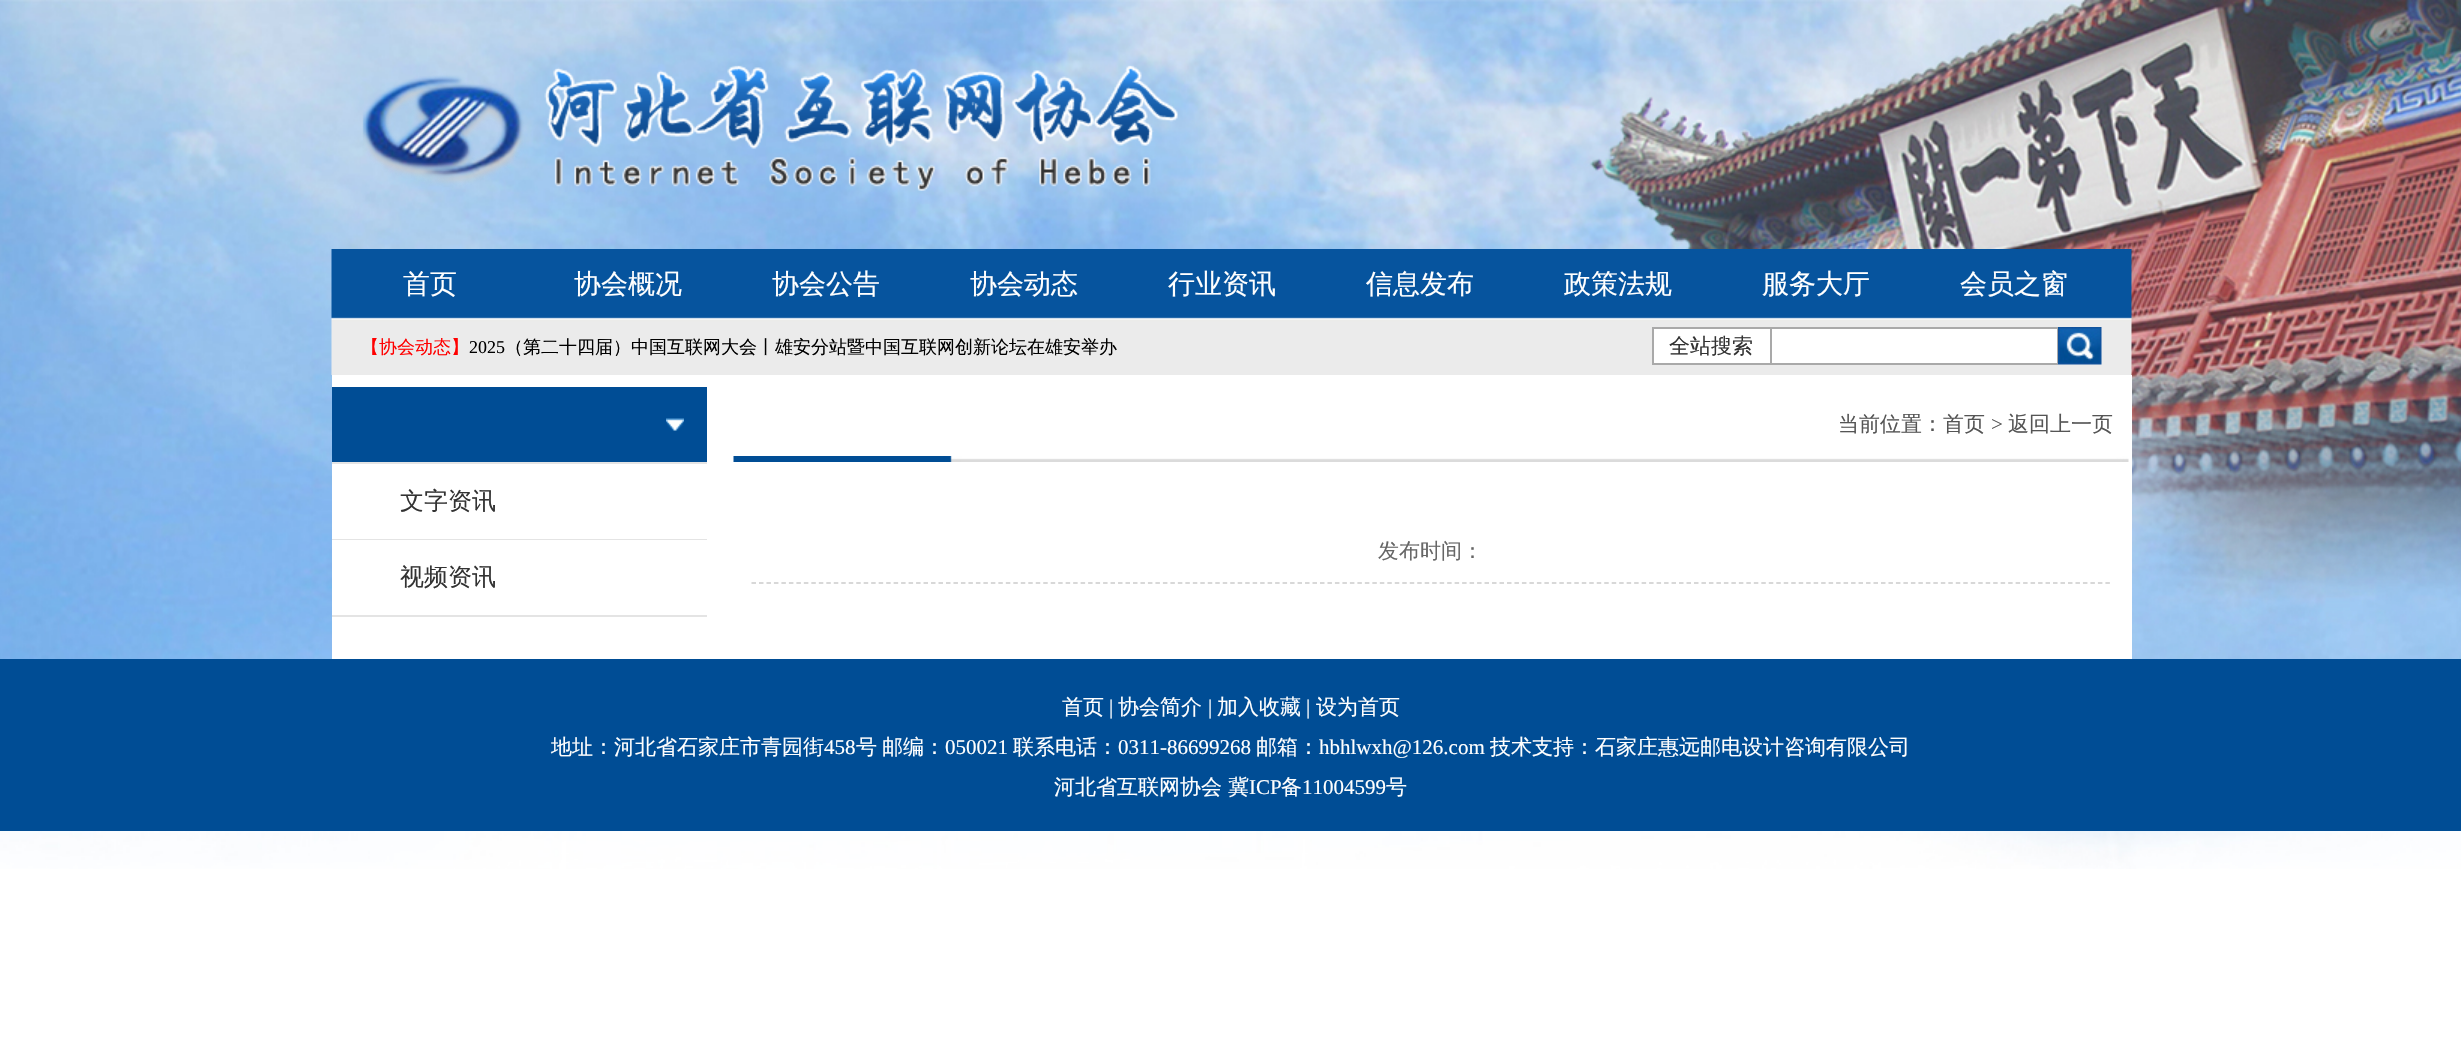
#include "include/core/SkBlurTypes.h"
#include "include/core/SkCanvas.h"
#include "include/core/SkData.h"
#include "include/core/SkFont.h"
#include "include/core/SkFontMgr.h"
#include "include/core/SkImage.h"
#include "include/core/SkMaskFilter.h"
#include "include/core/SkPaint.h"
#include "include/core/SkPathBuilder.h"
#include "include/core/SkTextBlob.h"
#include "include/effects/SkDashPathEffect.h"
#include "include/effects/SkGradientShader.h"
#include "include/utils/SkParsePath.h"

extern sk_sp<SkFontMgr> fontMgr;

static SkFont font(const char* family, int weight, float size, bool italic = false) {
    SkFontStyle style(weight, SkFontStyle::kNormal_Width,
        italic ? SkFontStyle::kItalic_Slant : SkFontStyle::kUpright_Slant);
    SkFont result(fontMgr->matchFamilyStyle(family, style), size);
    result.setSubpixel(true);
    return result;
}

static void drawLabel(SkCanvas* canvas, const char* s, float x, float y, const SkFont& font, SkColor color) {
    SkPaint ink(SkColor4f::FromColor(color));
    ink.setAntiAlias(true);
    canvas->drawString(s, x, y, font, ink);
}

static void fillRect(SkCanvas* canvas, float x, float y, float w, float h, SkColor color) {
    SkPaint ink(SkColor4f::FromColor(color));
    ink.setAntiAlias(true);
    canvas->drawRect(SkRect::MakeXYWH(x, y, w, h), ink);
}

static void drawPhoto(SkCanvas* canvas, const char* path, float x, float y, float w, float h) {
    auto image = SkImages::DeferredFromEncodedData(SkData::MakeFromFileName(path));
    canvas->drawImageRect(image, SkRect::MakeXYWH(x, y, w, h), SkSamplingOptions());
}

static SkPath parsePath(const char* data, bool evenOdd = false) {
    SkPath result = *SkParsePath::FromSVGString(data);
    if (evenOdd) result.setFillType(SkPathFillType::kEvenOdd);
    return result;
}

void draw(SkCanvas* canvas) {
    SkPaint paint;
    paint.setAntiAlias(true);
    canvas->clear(0xFFFFFFFF);
    drawPhoto(canvas, "assets/img1.png", 0, 0, 2461, 869);
    drawPhoto(canvas, "assets/img2.png", 362, 65, 816, 126);
    drawPhoto(canvas, "assets/img3.png", 331, 249, 1801, 126);
    SkFont font1 = font("WenQuanYi Zen Hei", 500, 27);
    drawLabel(canvas, "首页", 403, 293, font1, 0xFFFFFFFF);
    drawLabel(canvas, "协会概况", 574, 293, font1, 0xFFFFFFFF);
    drawLabel(canvas, "协会公告", 772, 293, font1, 0xFFFFFFFF);
    drawLabel(canvas, "协会动态", 970, 293, font1, 0xFFFFFFFF);
    drawLabel(canvas, "行业资讯", 1168, 293, font1, 0xFFFFFFFF);
    drawLabel(canvas, "信息发布", 1366, 293, font1, 0xFFFFFFFF);
    drawLabel(canvas, "政策法规", 1564, 293, font1, 0xFFFFFFFF);
    drawLabel(canvas, "服务大厅", 1762, 293, font1, 0xFFFFFFFF);
    drawLabel(canvas, "会员之窗", 1960, 293, font1, 0xFFFFFFFF);
    SkFont font2 = font("WenQuanYi Zen Hei", 500, 18);
    drawLabel(canvas, "【协会动态】", 361, 353, font2, 0xFFFF0000);
    SkFont font3 = font("Liberation Serif", 400, 18);
    drawLabel(canvas, "2025", 469, 353, font3, 0xFF000000);
    drawLabel(canvas, "（第二十四届）中国互联网大会丨雄安分站暨中国互联网创新论坛在雄安举办", 505, 353, font2, 0xFF000000);
    fillRect(canvas, 1654, 329, 116, 34, 0xFFFFFFFF);
    fillRect(canvas, 1652, 327, 118, 2, 0xFFA9A9A9);
    fillRect(canvas, 1652, 363, 118, 2, 0xFFA9A9A9);
    fillRect(canvas, 1652, 327, 2, 38, 0xFFA9A9A9);
    SkFont font4 = font("WenQuanYi Zen Hei", 500, 21);
    drawLabel(canvas, "全站搜索", 1669, 353, font4, 0xFF333333);
    paint.setStroke(true);
    paint.setStrokeWidth(2);
    paint.setColor(0xFFA9A9A9);
    canvas->drawRect(SkRect::MakeXYWH(1771, 328, 286, 36), paint);
    fillRect(canvas, 1772, 329, 285, 34, 0xFFFFFFFF);
    drawPhoto(canvas, "assets/img4.png", 2058, 327, 44, 38);
    fillRect(canvas, 332, 375, 1800, 284, 0xFFFFFFFF);
    fillRect(canvas, 332, 387, 375, 75, 0xFF004D95);
    drawPhoto(canvas, "assets/img5.png", 666, 418, 18, 13);
    fillRect(canvas, 332, 462, 375, 2, 0xFFE4E4E4);
    fillRect(canvas, 332, 539, 375, 1, 0xFFE4E4E4);
    SkFont font5 = font("WenQuanYi Zen Hei", 500, 24);
    drawLabel(canvas, "文字资讯", 400, 509, font5, 0xFF333333);
    fillRect(canvas, 332, 615, 375, 2, 0xFFE4E4E4);
    drawLabel(canvas, "视频资讯", 400, 585, font5, 0xFF333333);
    drawPhoto(canvas, "assets/img6.png", 733, 456, 1396, 6);
    drawLabel(canvas, "当前位置：首页", 1838, 431, font4, 0xFF555555);
    SkFont font6 = font("Liberation Serif", 400, 21);
    drawLabel(canvas, ">", 1991, 431, font6, 0xFF555555);
    drawLabel(canvas, "返回上一页", 2008, 431, font4, 0xFF555555);
    paint.setStrokeWidth(1.5f);
    paint.setColor(0xFFCCCCCC);
    paint.setPathEffect(SkDashPathEffect::Make({{4.5f, 2.98f}}, 0));
    canvas->drawPath(parsePath("M751.5 583H2110.5"), paint);
    paint.setPathEffect(nullptr);
    drawLabel(canvas, "发布时间：", 1378, 558, font4, 0xFF666666);
    fillRect(canvas, 0, 659, 2461, 172, 0xFF004D95);
    drawLabel(canvas, "首页", 1062, 714, font4, 0xFFFFFFFF);
    drawLabel(canvas, "|", 1109, 714, font6, 0xFFFFFFFF);
    drawLabel(canvas, "协会简介", 1118, 714, font4, 0xFFFFFFFF);
    drawLabel(canvas, "|", 1208, 714, font6, 0xFFFFFFFF);
    drawLabel(canvas, "加入收藏", 1217, 714, font4, 0xFFFFFFFF);
    drawLabel(canvas, "|", 1306, 714, font6, 0xFFFFFFFF);
    drawLabel(canvas, "设为首页", 1316, 714, font4, 0xFFFFFFFF);
    drawLabel(canvas, "地址：河北省石家庄市青园街", 551, 754, font4, 0xFFFFFFFF);
    drawLabel(canvas, "458", 824, 754, font6, 0xFFFFFFFF);
    drawLabel(canvas, "号", 856, 754, font4, 0xFFFFFFFF);
    drawLabel(canvas, "邮编：", 882, 754, font4, 0xFFFFFFFF);
    drawLabel(canvas, "050021", 945, 754, font6, 0xFFFFFFFF);
    drawLabel(canvas, "联系电话：", 1013, 754, font4, 0xFFFFFFFF);
    drawLabel(canvas, "0311-86699268", 1118, 754, font6, 0xFFFFFFFF);
    drawLabel(canvas, "邮箱：", 1256, 754, font4, 0xFFFFFFFF);
    drawLabel(canvas, "hbhlwxh@126.com", 1319, 754, font6, 0xFFFFFFFF);
    drawLabel(canvas, "技术支持：石家庄惠远邮电设计咨询有限公司", 1490, 754, font4, 0xFFFFFFFF);
    drawLabel(canvas, "河北省互联网协会", 1054, 794, font4, 0xFFFFFFFF);
    drawLabel(canvas, "冀", 1228, 794, font4, 0xFFFFFFFF);
    drawLabel(canvas, "ICP", 1249, 794, font6, 0xFFFFFFFF);
    drawLabel(canvas, "备", 1281, 794, font4, 0xFFFFFFFF);
    drawLabel(canvas, "11004599", 1302, 794, font6, 0xFFFFFFFF);
    drawLabel(canvas, "号", 1386, 794, font4, 0xFFFFFFFF);
}
